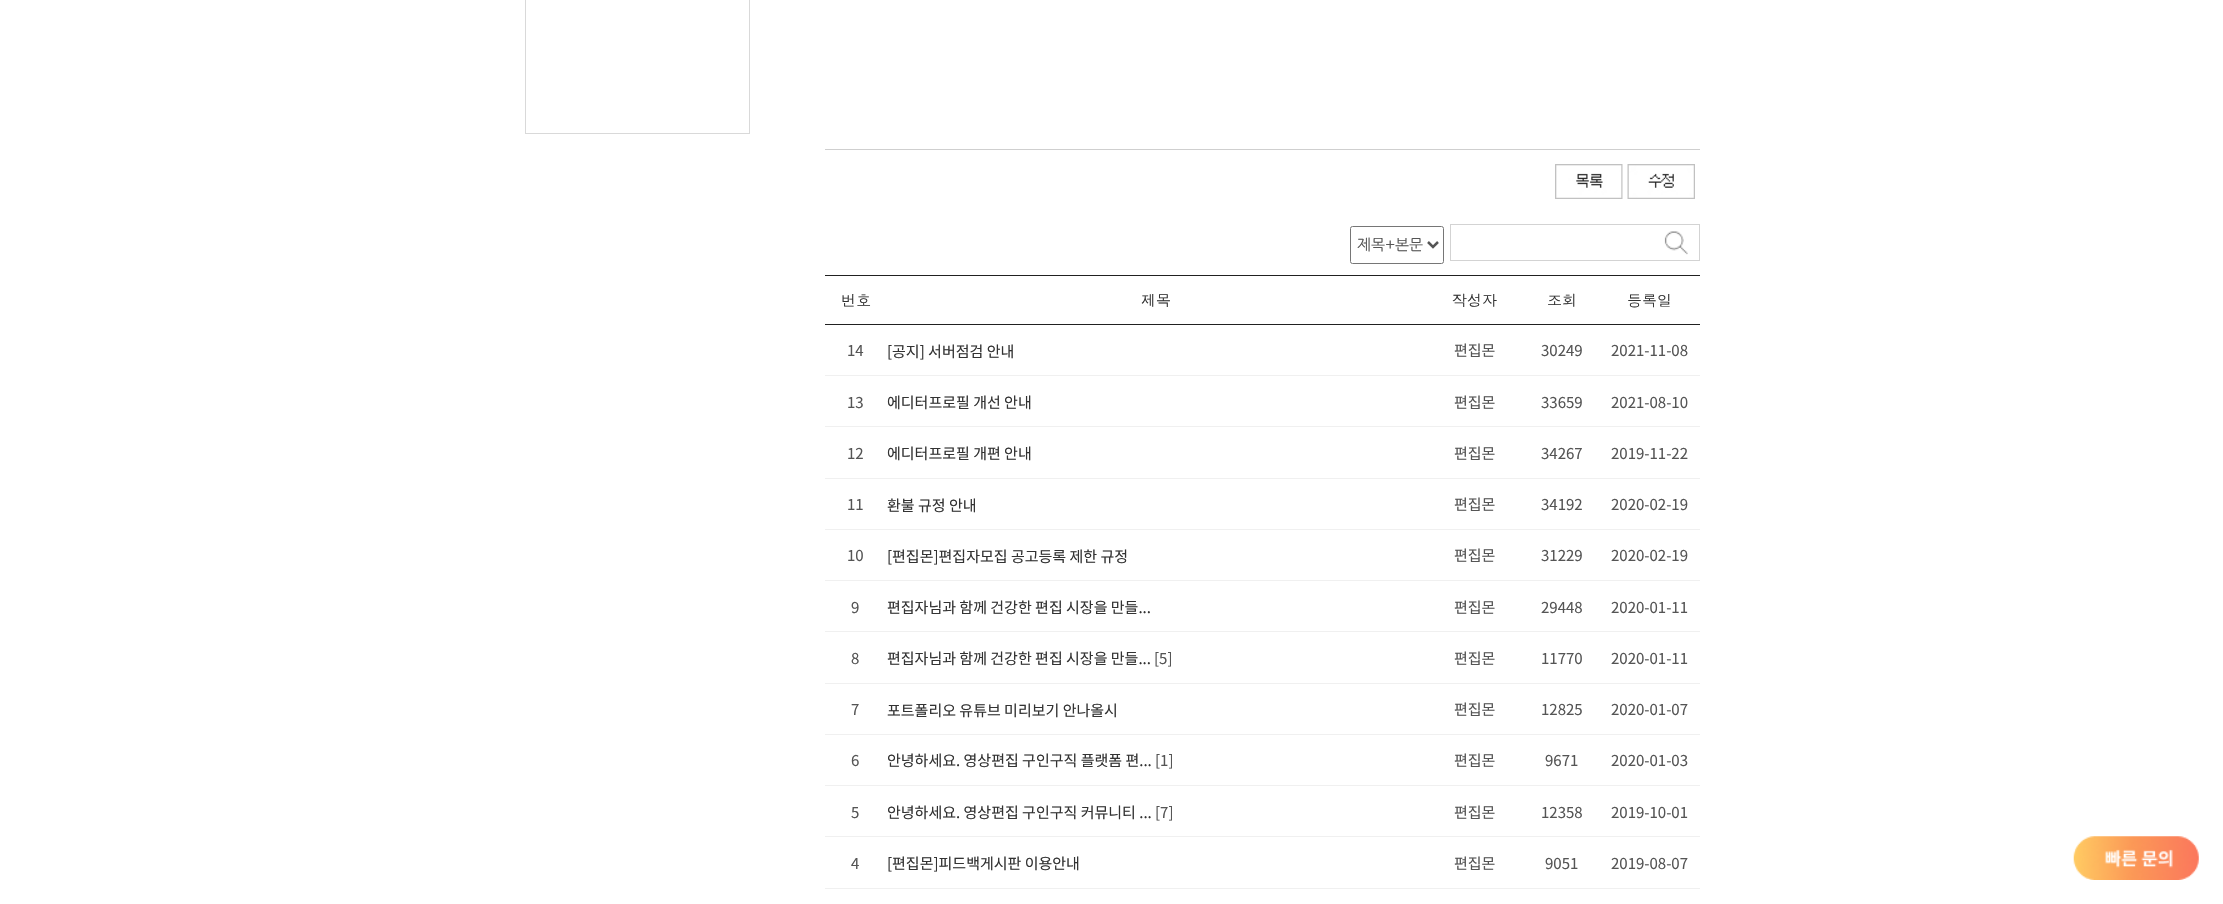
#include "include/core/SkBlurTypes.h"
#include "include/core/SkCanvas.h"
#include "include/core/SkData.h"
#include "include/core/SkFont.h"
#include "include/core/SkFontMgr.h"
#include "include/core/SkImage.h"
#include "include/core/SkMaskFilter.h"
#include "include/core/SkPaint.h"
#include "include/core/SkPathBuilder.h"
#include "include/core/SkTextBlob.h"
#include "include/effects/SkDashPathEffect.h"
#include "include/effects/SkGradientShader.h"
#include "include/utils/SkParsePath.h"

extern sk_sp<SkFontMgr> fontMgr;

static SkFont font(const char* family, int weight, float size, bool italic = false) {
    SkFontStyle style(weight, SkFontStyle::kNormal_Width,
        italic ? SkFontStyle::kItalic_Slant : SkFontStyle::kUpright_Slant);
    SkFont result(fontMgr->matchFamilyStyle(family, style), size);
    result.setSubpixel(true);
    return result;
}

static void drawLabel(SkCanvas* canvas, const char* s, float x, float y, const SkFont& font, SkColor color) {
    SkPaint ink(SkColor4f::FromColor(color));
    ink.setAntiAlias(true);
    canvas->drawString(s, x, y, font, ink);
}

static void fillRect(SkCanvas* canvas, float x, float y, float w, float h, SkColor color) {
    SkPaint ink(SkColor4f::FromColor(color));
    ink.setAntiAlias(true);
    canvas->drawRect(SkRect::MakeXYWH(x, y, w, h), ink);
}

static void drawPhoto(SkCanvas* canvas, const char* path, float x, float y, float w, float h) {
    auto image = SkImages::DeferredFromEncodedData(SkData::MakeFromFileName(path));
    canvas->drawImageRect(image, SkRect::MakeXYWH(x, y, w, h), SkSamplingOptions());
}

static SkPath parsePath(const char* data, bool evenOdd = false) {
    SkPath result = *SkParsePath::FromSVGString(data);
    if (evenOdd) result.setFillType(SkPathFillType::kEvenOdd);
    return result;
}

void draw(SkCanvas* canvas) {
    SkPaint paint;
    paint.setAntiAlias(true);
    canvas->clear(0xFFFFFFFF);
    paint.setStroke(true);
    paint.setStrokeWidth(1);
    paint.setColor(0xFFD9D9D9);
    canvas->drawRect(SkRect::MakeXYWH(525.5f, -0.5f, 224, 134), paint);
    fillRect(canvas, 825, 149, 875, 1, 0xFFCFCFCF);
    drawPhoto(canvas, "assets/img1.png", 1555, 164, 68, 35);
    drawPhoto(canvas, "assets/img2.png", 1627, 164, 68, 35);
    paint.setColor(0xFFD3D3D3);
    canvas->drawRect(SkRect::MakeXYWH(1450.5f, 224.5f, 249, 36), paint);
    paint.setColor(0xFF767676);
    canvas->drawRoundRect(SkRect::MakeXYWH(1350.5f, 226.5f, 93, 37), 2, 2, paint);
    paint.setStrokeWidth(2.5f);
    paint.setColor(0xFF555555);
    canvas->drawPath(parsePath("M1428 242L1433 247L1438 242"), paint);
    SkFont font1 = font("NanumGothic", 400, 15);
    drawLabel(canvas, "제목+본문", 1357, 250, font1, 0xFF555555);
    drawPhoto(canvas, "assets/img3.png", 1664, 231, 24, 24);
    fillRect(canvas, 825, 275, 875, 1, 0xFF212121);
    fillRect(canvas, 825, 324, 875, 1, 0xFF212121);
    SkFont font2 = font("Dotum", 400, 15);
    drawLabel(canvas, "번호", 841, 306, font2, 0xFF333333);
    drawLabel(canvas, "제목", 1141, 306, font2, 0xFF333333);
    drawLabel(canvas, "작성자", 1452, 306, font2, 0xFF333333);
    drawLabel(canvas, "조회", 1547, 306, font2, 0xFF333333);
    drawLabel(canvas, "등록일", 1627, 306, font2, 0xFF333333);
    SkFont font3 = font("Noto Sans KR", 400, 15);
    drawLabel(canvas, "14", 847, 356, font3, 0xFF555555);
    drawLabel(canvas, "[공지] 서버점검 안내", 887, 357, font3, 0xFF333333);
    drawLabel(canvas, "편집몬", 1454, 356, font3, 0xFF555555);
    drawLabel(canvas, "30249", 1541, 356, font3, 0xFF555555);
    drawLabel(canvas, "2021-11-08", 1611, 356, font3, 0xFF555555);
    fillRect(canvas, 825, 375, 875, 1, 0xFFF0F0F0);
    drawLabel(canvas, "13", 847, 408, font3, 0xFF555555);
    drawLabel(canvas, "에디터프로필 개선 안내", 887, 408, font3, 0xFF333333);
    drawLabel(canvas, "편집몬", 1454, 408, font3, 0xFF555555);
    drawLabel(canvas, "33659", 1541, 408, font3, 0xFF555555);
    drawLabel(canvas, "2021-08-10", 1611, 408, font3, 0xFF555555);
    fillRect(canvas, 825, 426, 875, 1, 0xFFF0F0F0);
    drawLabel(canvas, "12", 847, 459, font3, 0xFF555555);
    drawLabel(canvas, "에디터프로필 개편 안내", 887, 459, font3, 0xFF333333);
    drawLabel(canvas, "편집몬", 1454, 459, font3, 0xFF555555);
    drawLabel(canvas, "34267", 1541, 459, font3, 0xFF555555);
    drawLabel(canvas, "2019-11-22", 1611, 459, font3, 0xFF555555);
    fillRect(canvas, 825, 478, 875, 1, 0xFFF0F0F0);
    drawLabel(canvas, "11", 847, 510, font3, 0xFF555555);
    drawLabel(canvas, "환불 규정 안내", 887, 511, font3, 0xFF333333);
    drawLabel(canvas, "편집몬", 1454, 510, font3, 0xFF555555);
    drawLabel(canvas, "34192", 1541, 510, font3, 0xFF555555);
    drawLabel(canvas, "2020-02-19", 1611, 510, font3, 0xFF555555);
    fillRect(canvas, 825, 529, 875, 1, 0xFFF0F0F0);
    drawLabel(canvas, "10", 847, 561, font3, 0xFF555555);
    drawLabel(canvas, "[편집몬]편집자모집 공고등록 제한 규정", 887, 562, font3, 0xFF333333);
    drawLabel(canvas, "편집몬", 1454, 561, font3, 0xFF555555);
    drawLabel(canvas, "31229", 1541, 561, font3, 0xFF555555);
    drawLabel(canvas, "2020-02-19", 1611, 561, font3, 0xFF555555);
    fillRect(canvas, 825, 580, 875, 1, 0xFFF0F0F0);
    drawLabel(canvas, "9", 851, 613, font3, 0xFF555555);
    drawLabel(canvas, "편집자님과 함께 건강한 편집 시장을 만들...", 887, 613, font3, 0xFF333333);
    drawLabel(canvas, "편집몬", 1454, 613, font3, 0xFF555555);
    drawLabel(canvas, "29448", 1541, 613, font3, 0xFF555555);
    drawLabel(canvas, "2020-01-11", 1611, 613, font3, 0xFF555555);
    fillRect(canvas, 825, 631, 875, 1, 0xFFF0F0F0);
    drawLabel(canvas, "8", 851, 664, font3, 0xFF555555);
    drawLabel(canvas, "편집자님과 함께 건강한 편집 시장을 만들...", 887, 664, font3, 0xFF333333);
    drawLabel(canvas, "[5]", 1154, 664, font3, 0xFF555555);
    drawLabel(canvas, "편집몬", 1454, 664, font3, 0xFF555555);
    drawLabel(canvas, "11770", 1541, 664, font3, 0xFF555555);
    drawLabel(canvas, "2020-01-11", 1611, 664, font3, 0xFF555555);
    fillRect(canvas, 825, 683, 875, 1, 0xFFF0F0F0);
    drawLabel(canvas, "7", 851, 715, font3, 0xFF555555);
    drawLabel(canvas, "포트폴리오 유튜브 미리보기 안나올시", 887, 716, font3, 0xFF333333);
    drawLabel(canvas, "편집몬", 1454, 715, font3, 0xFF555555);
    drawLabel(canvas, "12825", 1541, 715, font3, 0xFF555555);
    drawLabel(canvas, "2020-01-07", 1611, 715, font3, 0xFF555555);
    fillRect(canvas, 825, 734, 875, 1, 0xFFF0F0F0);
    drawLabel(canvas, "6", 851, 766, font3, 0xFF555555);
    drawLabel(canvas, "안녕하세요. 영상편집 구인구직 플랫폼 편...", 887, 766, font3, 0xFF333333);
    drawLabel(canvas, "[1]", 1155, 766, font3, 0xFF555555);
    drawLabel(canvas, "편집몬", 1454, 766, font3, 0xFF555555);
    drawLabel(canvas, "9671", 1545, 766, font3, 0xFF555555);
    drawLabel(canvas, "2020-01-03", 1611, 766, font3, 0xFF555555);
    fillRect(canvas, 825, 785, 875, 1, 0xFFF0F0F0);
    drawLabel(canvas, "5", 851, 818, font3, 0xFF555555);
    drawLabel(canvas, "안녕하세요. 영상편집 구인구직 커뮤니티 ...", 887, 818, font3, 0xFF333333);
    drawLabel(canvas, "[7]", 1155, 818, font3, 0xFF555555);
    drawLabel(canvas, "편집몬", 1454, 818, font3, 0xFF555555);
    drawLabel(canvas, "12358", 1541, 818, font3, 0xFF555555);
    drawLabel(canvas, "2019-10-01", 1611, 818, font3, 0xFF555555);
    fillRect(canvas, 825, 836, 875, 1, 0xFFF0F0F0);
    drawLabel(canvas, "4", 851, 869, font3, 0xFF555555);
    drawLabel(canvas, "[편집몬]피드백게시판 이용안내", 887, 869, font3, 0xFF333333);
    drawLabel(canvas, "편집몬", 1454, 869, font3, 0xFF555555);
    drawLabel(canvas, "9051", 1545, 869, font3, 0xFF555555);
    drawLabel(canvas, "2019-08-07", 1611, 869, font3, 0xFF555555);
    fillRect(canvas, 825, 888, 875, 1, 0xFFF0F0F0);
    drawPhoto(canvas, "assets/img4.png", 2073, 836, 126, 44);
}
